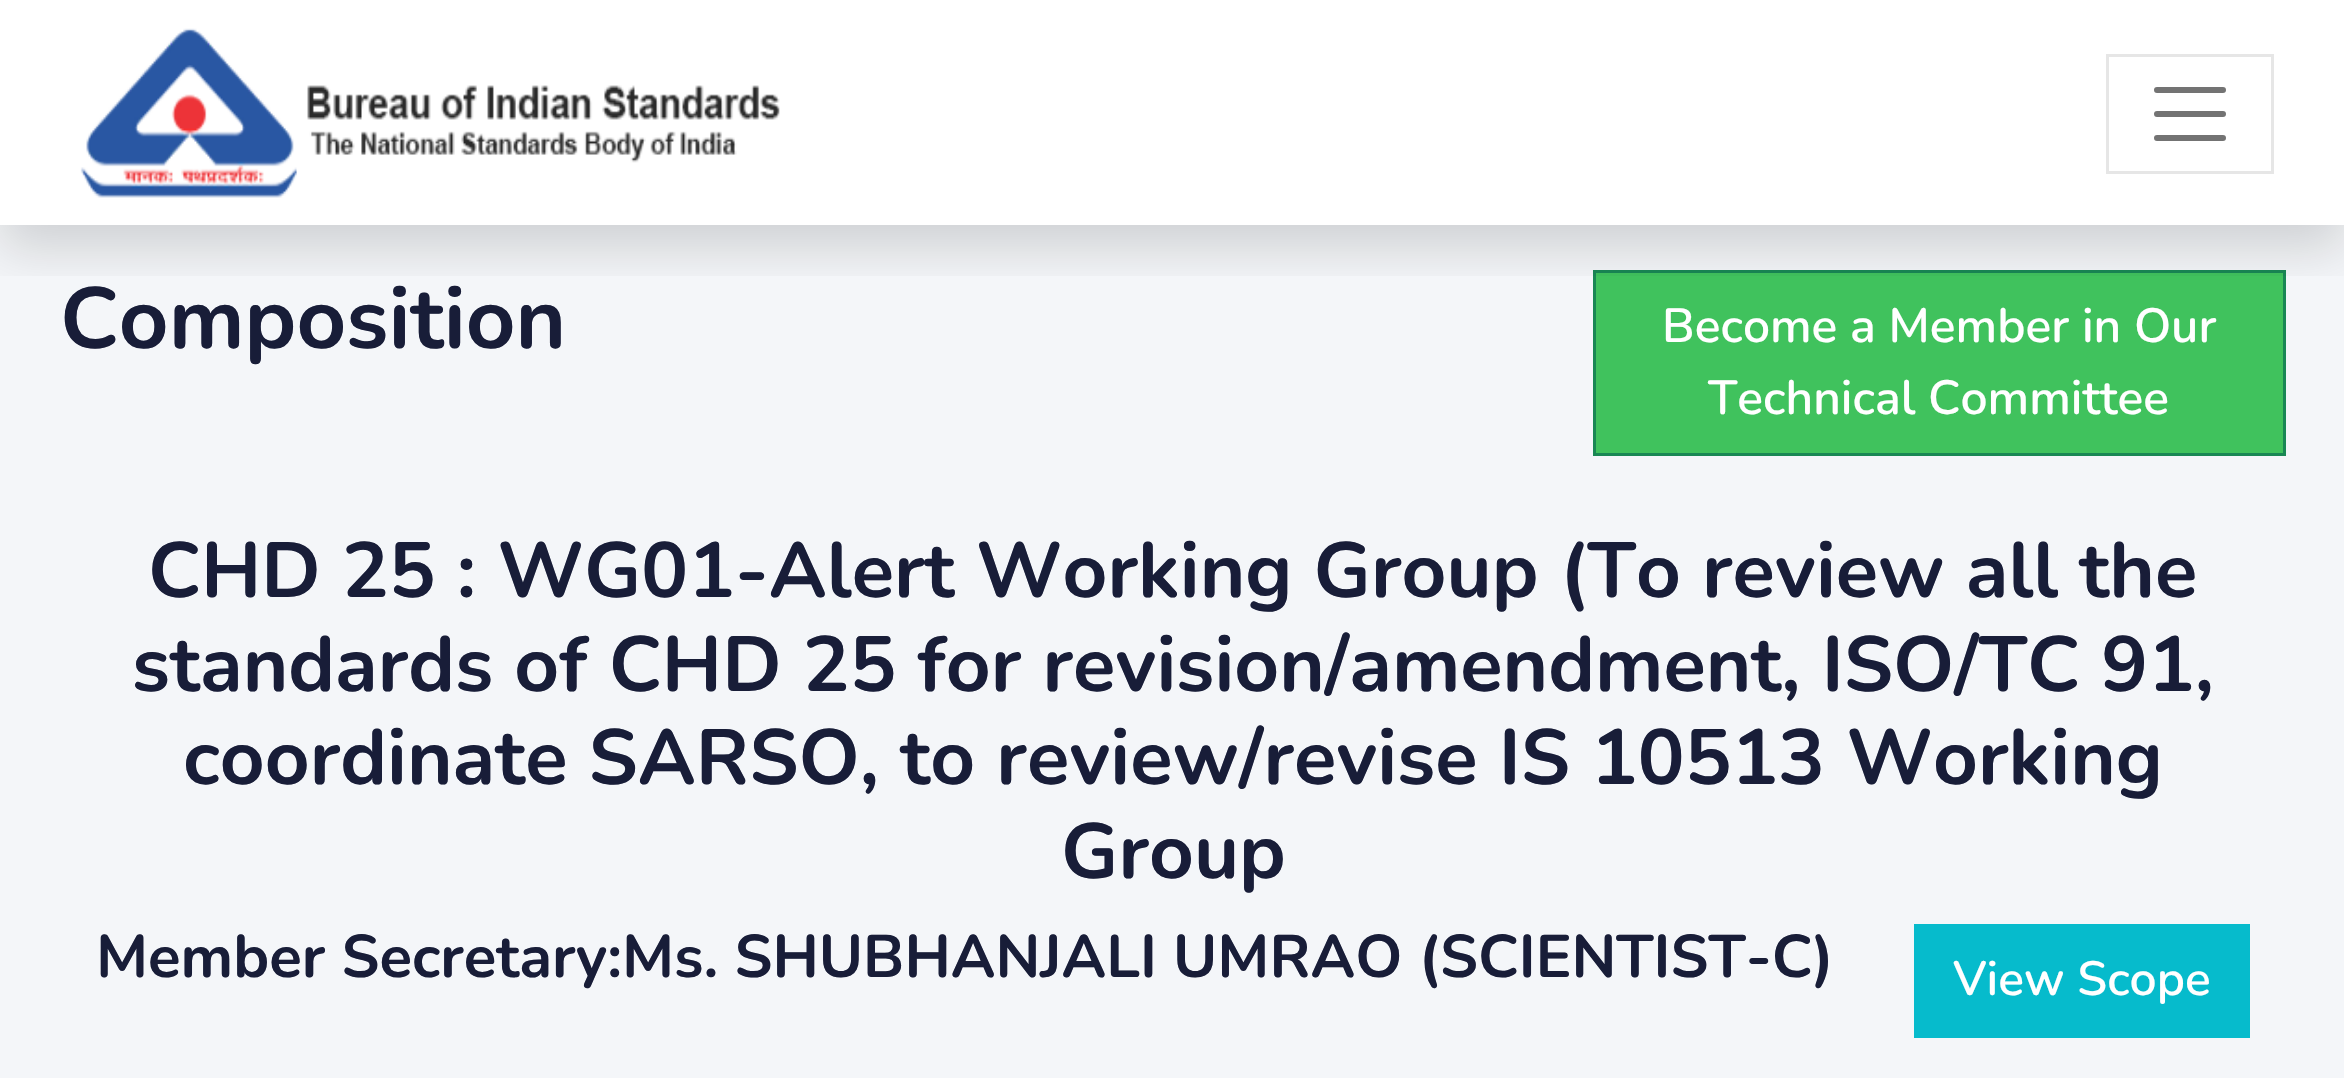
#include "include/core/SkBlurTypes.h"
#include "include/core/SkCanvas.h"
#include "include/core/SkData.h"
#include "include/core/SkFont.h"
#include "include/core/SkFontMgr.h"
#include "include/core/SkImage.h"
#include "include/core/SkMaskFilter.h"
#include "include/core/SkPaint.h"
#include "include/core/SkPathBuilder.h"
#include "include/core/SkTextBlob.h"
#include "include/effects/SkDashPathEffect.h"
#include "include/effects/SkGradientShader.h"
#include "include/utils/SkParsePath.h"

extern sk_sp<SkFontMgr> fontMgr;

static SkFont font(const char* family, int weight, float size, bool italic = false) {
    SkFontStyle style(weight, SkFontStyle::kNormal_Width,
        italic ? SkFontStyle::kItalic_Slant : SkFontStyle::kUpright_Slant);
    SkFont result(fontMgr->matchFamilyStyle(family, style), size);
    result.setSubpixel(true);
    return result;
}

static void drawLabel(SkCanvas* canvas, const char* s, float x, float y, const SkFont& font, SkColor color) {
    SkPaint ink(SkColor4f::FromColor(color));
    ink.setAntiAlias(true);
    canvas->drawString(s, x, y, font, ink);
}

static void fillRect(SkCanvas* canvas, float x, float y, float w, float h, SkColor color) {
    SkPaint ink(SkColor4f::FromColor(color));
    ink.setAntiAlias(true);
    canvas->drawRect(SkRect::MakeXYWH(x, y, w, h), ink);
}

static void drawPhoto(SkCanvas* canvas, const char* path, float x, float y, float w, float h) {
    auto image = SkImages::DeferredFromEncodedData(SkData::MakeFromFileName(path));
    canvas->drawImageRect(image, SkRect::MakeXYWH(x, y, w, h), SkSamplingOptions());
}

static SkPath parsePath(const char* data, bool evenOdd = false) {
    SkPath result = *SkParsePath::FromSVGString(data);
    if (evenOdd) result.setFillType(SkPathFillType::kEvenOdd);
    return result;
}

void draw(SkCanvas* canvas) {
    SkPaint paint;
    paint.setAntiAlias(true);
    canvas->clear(0xFFFFFFFF);
    fillRect(canvas, 0, 225, 2344, 853, 0xFFF4F6F9);
    paint.setColor(0xFF40C25D);
    canvas->drawRect(SkRect::MakeXYWH(1594.5f, 271.5f, 690, 183), paint);
    paint.setStroke(true);
    paint.setStrokeWidth(3);
    paint.setColor(0xFF198754);
    canvas->drawRect(SkRect::MakeXYWH(1594.5f, 271.5f, 690, 183), paint);
    canvas->save();
    canvas->clipRect(SkRect::MakeXYWH(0, 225, 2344, 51));
    paint.setStroke(false);
    paint.setColor(0x26000000);
    paint.setMaskFilter(SkMaskFilter::MakeBlur(kNormal_SkBlurStyle, 24));
    canvas->drawRect(SkRect::MakeXYWH(0, 24, 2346, 225), paint);
    paint.setMaskFilter(nullptr);
    canvas->restore();
    drawPhoto(canvas, "assets/img1.png", 80, 28, 700, 170);
    paint.setStroke(true);
    paint.setColor(0xFFE6E6E6);
    canvas->drawRect(SkRect::MakeXYWH(2107.5f, 55.5f, 165, 117), paint);
    paint.setStrokeWidth(6);
    paint.setStrokeCap(SkPaint::kRound_Cap);
    paint.setColor(0xFF737373);
    canvas->drawPath(parsePath("M2157 90H2223M2157 114H2223M2157 138H2223"), paint);
    SkFont font1 = font("Nunito", 700, 86.5f);
    drawLabel(canvas, "Composition", 60, 348, font1, 0xFF181D38);
    SkFont font2 = font("Nunito", 600, 48);
    drawLabel(canvas, "Become a Member in Our", 1662, 342, font2, 0xFFFFFFFF);
    drawLabel(canvas, "Technical Committee", 1708, 414, font2, 0xFFFFFFFF);
    SkFont font3 = font("Nunito", 700, 78);
    drawLabel(canvas, "CHD 25 : WG01-Alert Working Group (To review all the", 148, 597, font3, 0xFF181D38);
    drawLabel(canvas, "standards of CHD 25 for revision/amendment, ISO/TC 91,", 132, 691, font3, 0xFF181D38);
    drawLabel(canvas, "coordinate SARSO, to review/revise IS 10513 Working", 183, 784, font3, 0xFF181D38);
    drawLabel(canvas, "Group", 1061, 878, font3, 0xFF181D38);
    SkFont font4 = font("Nunito", 700, 60);
    drawLabel(canvas, "Member Secretary:Ms. SHUBHANJALI UMRAO (SCIENTIST-C)", 96, 977, font4, 0xFF181D38);
    fillRect(canvas, 1914, 924, 336, 114, 0xFF06BBCC);
    drawLabel(canvas, "View Scope", 1953, 995, font2, 0xFFFFFFFF);
}
